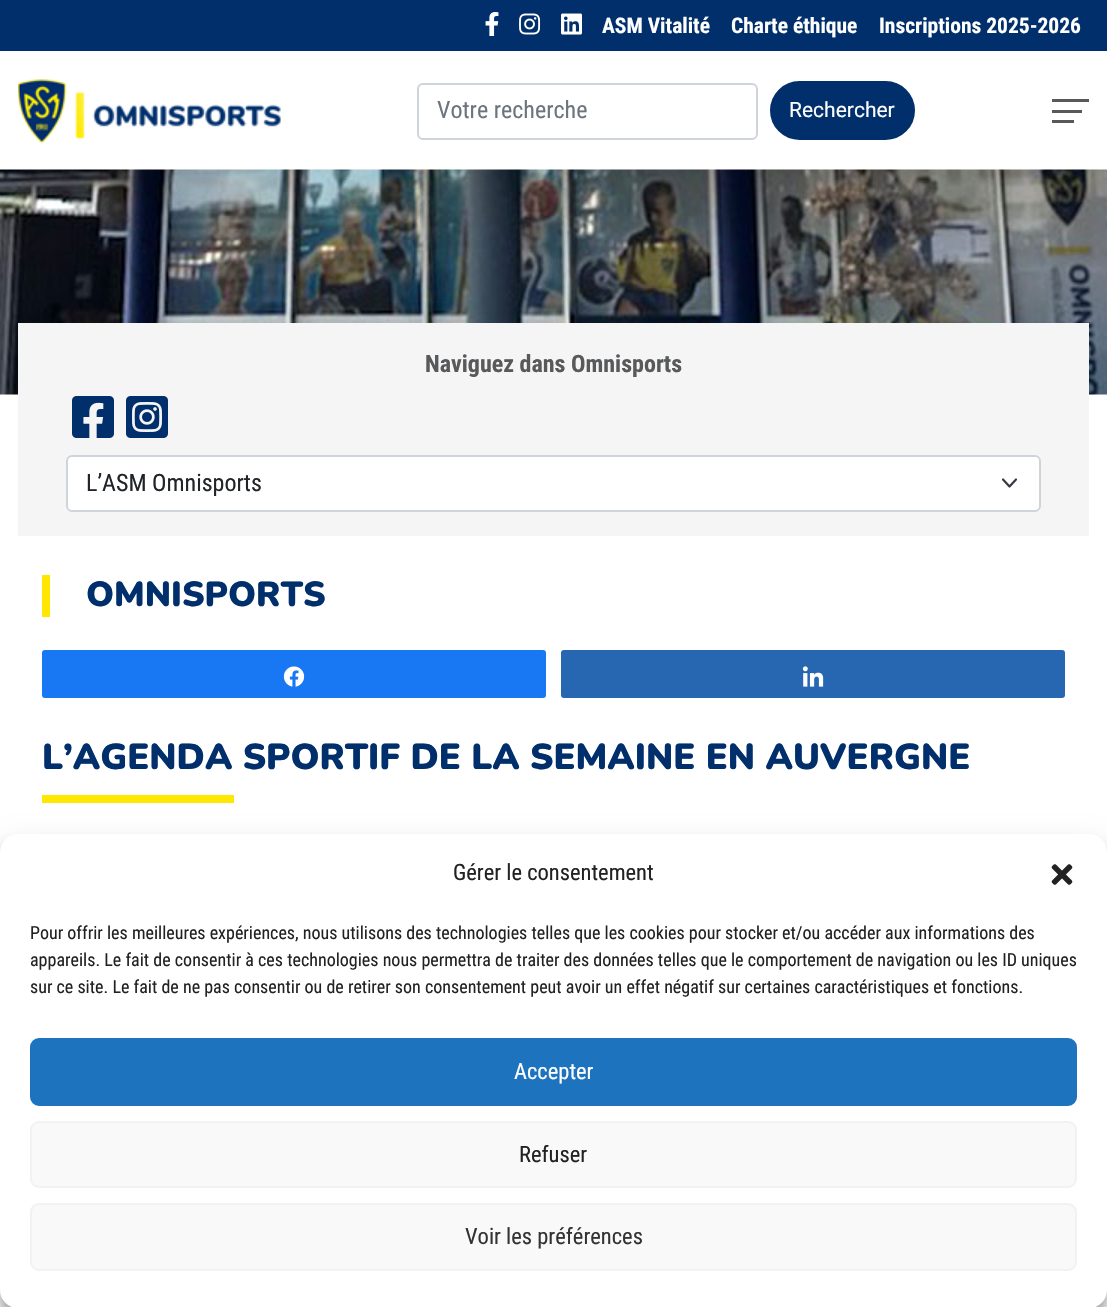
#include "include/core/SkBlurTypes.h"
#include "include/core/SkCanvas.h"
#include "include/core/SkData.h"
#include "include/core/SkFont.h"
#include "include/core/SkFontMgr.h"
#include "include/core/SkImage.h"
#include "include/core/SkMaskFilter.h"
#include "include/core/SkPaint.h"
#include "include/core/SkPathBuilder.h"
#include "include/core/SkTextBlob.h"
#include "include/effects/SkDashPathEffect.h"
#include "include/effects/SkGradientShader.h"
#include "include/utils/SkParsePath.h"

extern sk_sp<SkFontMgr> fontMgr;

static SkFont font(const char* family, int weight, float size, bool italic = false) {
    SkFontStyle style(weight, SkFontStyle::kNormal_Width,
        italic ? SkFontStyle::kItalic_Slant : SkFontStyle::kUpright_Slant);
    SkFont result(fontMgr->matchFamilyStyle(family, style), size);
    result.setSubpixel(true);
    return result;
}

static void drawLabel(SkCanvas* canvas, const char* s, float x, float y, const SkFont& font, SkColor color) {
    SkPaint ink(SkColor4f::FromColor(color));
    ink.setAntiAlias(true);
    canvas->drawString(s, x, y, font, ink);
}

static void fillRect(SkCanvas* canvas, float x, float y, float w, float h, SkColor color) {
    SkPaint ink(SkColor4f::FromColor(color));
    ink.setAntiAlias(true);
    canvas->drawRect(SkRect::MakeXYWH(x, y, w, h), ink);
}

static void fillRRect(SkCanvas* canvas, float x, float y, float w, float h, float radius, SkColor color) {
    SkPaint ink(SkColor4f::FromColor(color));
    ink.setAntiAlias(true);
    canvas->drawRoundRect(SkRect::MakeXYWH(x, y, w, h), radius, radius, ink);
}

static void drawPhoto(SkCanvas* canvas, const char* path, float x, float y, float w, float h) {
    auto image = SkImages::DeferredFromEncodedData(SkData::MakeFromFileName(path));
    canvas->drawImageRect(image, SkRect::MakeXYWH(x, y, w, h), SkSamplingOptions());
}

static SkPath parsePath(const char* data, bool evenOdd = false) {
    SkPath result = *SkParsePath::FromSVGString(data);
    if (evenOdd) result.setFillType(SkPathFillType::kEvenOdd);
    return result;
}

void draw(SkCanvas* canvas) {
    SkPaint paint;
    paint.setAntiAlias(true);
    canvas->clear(0xFFFFFFFF);
    fillRect(canvas, 0, 0, 1107, 51, 0xFF002F6C);
    drawPhoto(canvas, "assets/img1.png", 485, 12, 14, 24);
    drawPhoto(canvas, "assets/img2.png", 519, 13, 22, 22);
    drawPhoto(canvas, "assets/img3.png", 561, 13, 21, 22);
    SkFont font1 = font("Roboto Condensed", 700, 21.5f);
    drawLabel(canvas, "ASM Vitalité", 602, 33, font1, 0xFFFFFFFF);
    drawLabel(canvas, "Charte éthique", 731, 33, font1, 0xFFFFFFFF);
    drawLabel(canvas, "Inscriptions 2025-2026", 879, 33, font1, 0xFFFFFFFF);
    drawPhoto(canvas, "assets/img4.png", 18, 79, 263, 64);
    paint.setStroke(true);
    paint.setStrokeWidth(2);
    paint.setColor(0xFFCED4DA);
    canvas->drawRoundRect(SkRect::MakeXYWH(418, 84, 339, 55), 5, 5, paint);
    SkFont font2 = font("Roboto Condensed", 400, 24);
    drawLabel(canvas, "Votre recherche", 437, 118, font2, 0xFF6C757D);
    paint.setStroke(false);
    paint.setColor(0xFF002F6C);
    canvas->drawRoundRect(SkRect::MakeXYWH(771, 82, 143, 57), 28.5f, 28.5f, paint);
    paint.setStroke(true);
    canvas->drawRoundRect(SkRect::MakeXYWH(771, 82, 143, 57), 28.5f, 28.5f, paint);
    SkFont font3 = font("Roboto", 400, 21);
    drawLabel(canvas, "Rechercher", 789, 117, font3, 0xFFFFFFFF);
    fillRect(canvas, 1052, 99, 37, 3, 0xFF58595B);
    fillRect(canvas, 1052, 110, 30, 3, 0xFF58595B);
    fillRect(canvas, 1052, 120, 22, 3, 0xFF58595B);
    drawPhoto(canvas, "assets/img5.png", 0, 169, 1107, 226);
    fillRect(canvas, 18, 323, 1071, 213, 0xFFF5F5F5);
    SkFont font4 = font("Roboto Condensed", 700, 24);
    drawLabel(canvas, "Naviguez dans Omnisports", 425, 372, font4, 0xFF58595B);
    drawPhoto(canvas, "assets/img6.png", 72, 396, 42, 42);
    drawPhoto(canvas, "assets/img7.png", 126, 396, 42, 42);
    fillRRect(canvas, 66, 455, 975, 57, 6, 0xFFFFFFFF);
    paint.setStrokeWidth(2.2f);
    paint.setStrokeCap(SkPaint::kRound_Cap);
    paint.setStrokeJoin(SkPaint::kRound_Join);
    paint.setColor(0xFF343A40);
    canvas->drawPath(parsePath("M1003 479.5L1009.5 486.5L1016 479.5"), paint);
    paint.setStrokeWidth(2);
    paint.setStrokeCap(SkPaint::kButt_Cap);
    paint.setStrokeJoin(SkPaint::kMiter_Join);
    paint.setColor(0xFFCED4DA);
    canvas->drawRoundRect(SkRect::MakeXYWH(67, 456, 973, 55), 5, 5, paint);
    drawLabel(canvas, "L’ASM Omnisports", 86, 491, font2, 0xFF212529);
    fillRect(canvas, 42, 575, 8, 42, 0xFFFFE701);
    SkFont font5 = font("Nunito", 900, 34.75f);
    drawLabel(canvas, "OMNISPORTS", 86, 606, font5, 0xFF002F6C);
    paint.setStroke(false);
    paint.setColor(0xFF1877F2);
    canvas->drawRoundRect(SkRect::MakeXYWH(43, 651, 502, 46), 2, 2, paint);
    paint.setStroke(true);
    canvas->drawRoundRect(SkRect::MakeXYWH(43, 651, 502, 46), 2, 2, paint);
    drawPhoto(canvas, "assets/img8.png", 283, 666, 22, 21);
    paint.setStroke(false);
    paint.setColor(0xFF2767B1);
    canvas->drawRoundRect(SkRect::MakeXYWH(562, 651, 502, 46), 2, 2, paint);
    paint.setStroke(true);
    canvas->drawRoundRect(SkRect::MakeXYWH(562, 651, 502, 46), 2, 2, paint);
    drawPhoto(canvas, "assets/img9.png", 802, 666, 22, 21);
    SkFont font6 = font("Nunito", 900, 36);
    drawLabel(canvas, "L’AGENDA SPORTIF DE LA SEMAINE EN AUVERGNE", 42, 769, font6, 0xFF002F6C);
    fillRect(canvas, 42, 795, 192, 8, 0xFFFFE701);
    paint.setStroke(false);
    paint.setColor(0x3B000000);
    paint.setMaskFilter(SkMaskFilter::MakeBlur(kNormal_SkBlurStyle, 4.5f));
    canvas->drawRoundRect(SkRect::MakeXYWH(0, 843, 1107, 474), 18, 18, paint);
    paint.setMaskFilter(nullptr);
    paint.setColor(0x30000000);
    paint.setMaskFilter(SkMaskFilter::MakeBlur(kNormal_SkBlurStyle, 15));
    canvas->drawRoundRect(SkRect::MakeXYWH(0, 849, 1107, 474), 18, 18, paint);
    paint.setMaskFilter(nullptr);
    fillRRect(canvas, 0, 834, 1107, 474, 18, 0xFFFFFFFF);
    SkFont font7 = font("Roboto Condensed", 400, 22.5f);
    drawLabel(canvas, "Gérer le consentement", 453, 880, font7, 0xFF222222);
    drawPhoto(canvas, "assets/img10.png", 1051, 864, 22, 21);
    SkFont font8 = font("Roboto Condensed", 400, 18);
    drawLabel(canvas, "Pour offrir les meilleures expériences, nous utilisons des technologies telles que les cookies pour stocker et/ou accéder aux informations des", 30, 939, font8, 0xFF222222);
    drawLabel(canvas, "appareils. Le fait de consentir à ces technologies nous permettra de traiter des données telles que le comportement de navigation ou les ID uniques", 30, 966, font8, 0xFF222222);
    drawLabel(canvas, "sur ce site. Le fait de ne pas consentir ou de retirer son consentement peut avoir un effet négatif sur certaines caractéristiques et fonctions.", 30, 993, font8, 0xFF222222);
    paint.setColor(0xFF1E73BE);
    canvas->drawRoundRect(SkRect::MakeXYWH(31, 1039, 1045, 66), 8, 8, paint);
    paint.setStroke(true);
    canvas->drawRoundRect(SkRect::MakeXYWH(31, 1039, 1045, 66), 8, 8, paint);
    drawLabel(canvas, "Accepter", 514, 1079, font7, 0xFFFFFFFF);
    paint.setStroke(false);
    paint.setColor(0xFFF9F9F9);
    canvas->drawRoundRect(SkRect::MakeXYWH(31, 1122, 1045, 65), 8, 8, paint);
    paint.setStroke(true);
    paint.setColor(0xFFF2F2F2);
    canvas->drawRoundRect(SkRect::MakeXYWH(31, 1122, 1045, 65), 8, 8, paint);
    drawLabel(canvas, "Refuser", 519, 1162, font7, 0xFF222222);
    paint.setStroke(false);
    paint.setColor(0xFFF9F9F9);
    canvas->drawRoundRect(SkRect::MakeXYWH(31, 1204, 1045, 66), 8, 8, paint);
    paint.setStroke(true);
    paint.setColor(0xFFF2F2F2);
    canvas->drawRoundRect(SkRect::MakeXYWH(31, 1204, 1045, 66), 8, 8, paint);
    drawLabel(canvas, "Voir les préférences", 465, 1244, font7, 0xFF333333);
}
